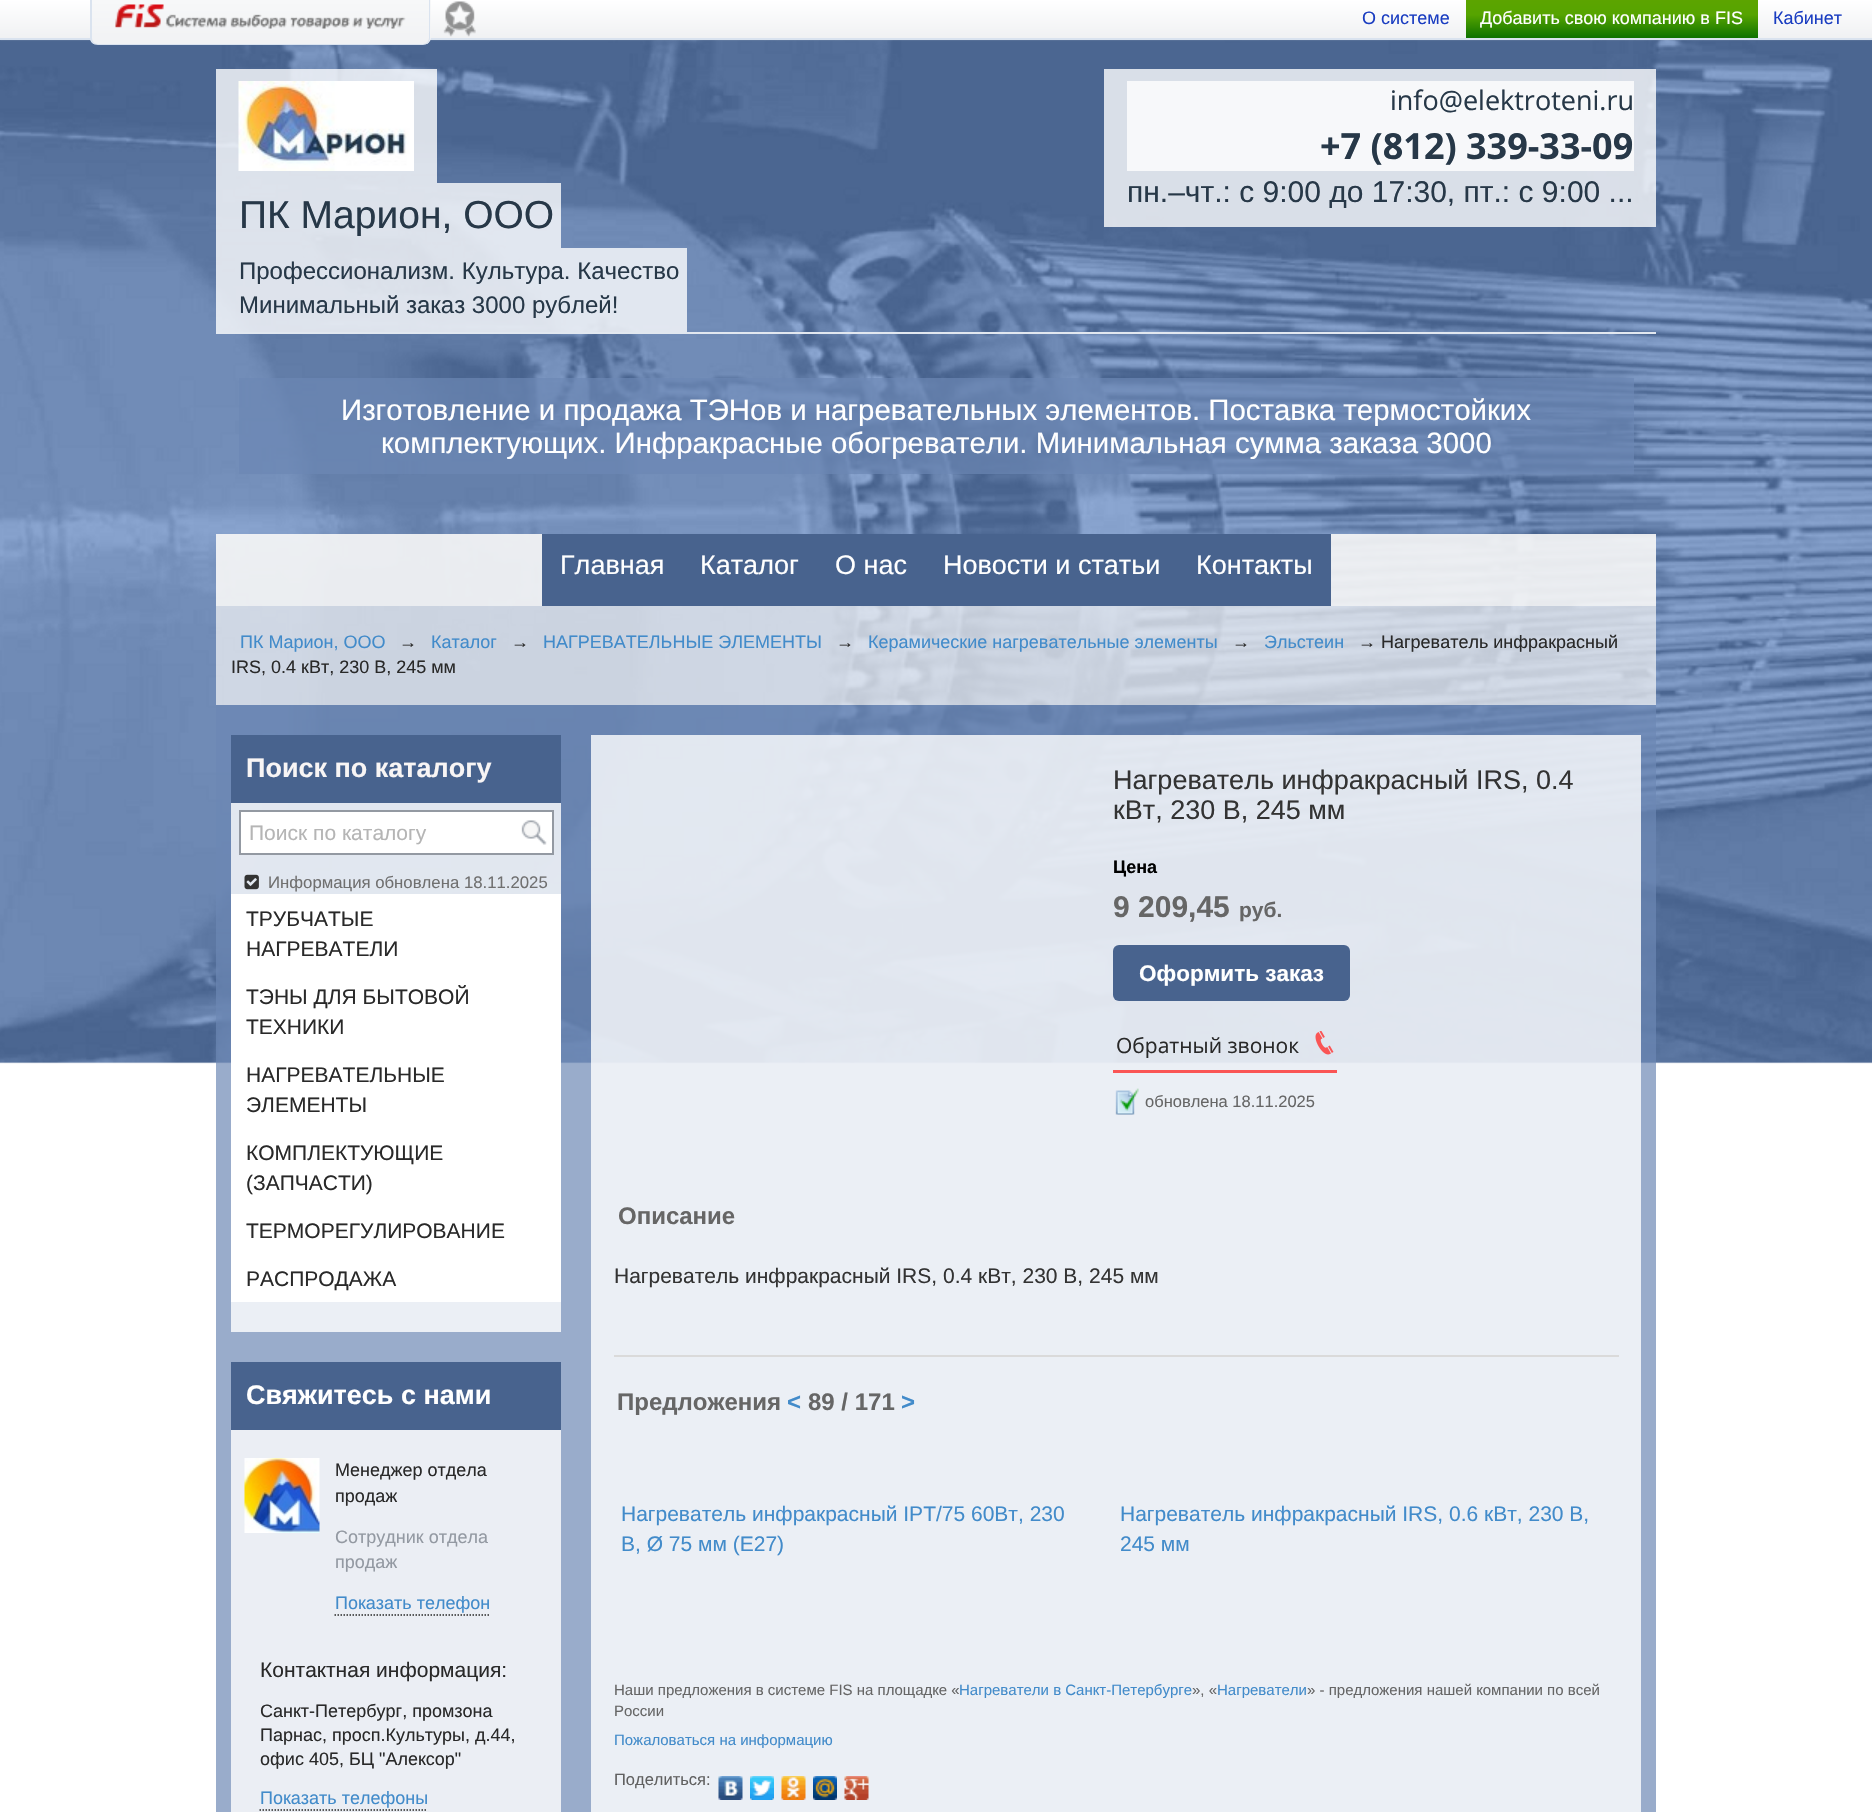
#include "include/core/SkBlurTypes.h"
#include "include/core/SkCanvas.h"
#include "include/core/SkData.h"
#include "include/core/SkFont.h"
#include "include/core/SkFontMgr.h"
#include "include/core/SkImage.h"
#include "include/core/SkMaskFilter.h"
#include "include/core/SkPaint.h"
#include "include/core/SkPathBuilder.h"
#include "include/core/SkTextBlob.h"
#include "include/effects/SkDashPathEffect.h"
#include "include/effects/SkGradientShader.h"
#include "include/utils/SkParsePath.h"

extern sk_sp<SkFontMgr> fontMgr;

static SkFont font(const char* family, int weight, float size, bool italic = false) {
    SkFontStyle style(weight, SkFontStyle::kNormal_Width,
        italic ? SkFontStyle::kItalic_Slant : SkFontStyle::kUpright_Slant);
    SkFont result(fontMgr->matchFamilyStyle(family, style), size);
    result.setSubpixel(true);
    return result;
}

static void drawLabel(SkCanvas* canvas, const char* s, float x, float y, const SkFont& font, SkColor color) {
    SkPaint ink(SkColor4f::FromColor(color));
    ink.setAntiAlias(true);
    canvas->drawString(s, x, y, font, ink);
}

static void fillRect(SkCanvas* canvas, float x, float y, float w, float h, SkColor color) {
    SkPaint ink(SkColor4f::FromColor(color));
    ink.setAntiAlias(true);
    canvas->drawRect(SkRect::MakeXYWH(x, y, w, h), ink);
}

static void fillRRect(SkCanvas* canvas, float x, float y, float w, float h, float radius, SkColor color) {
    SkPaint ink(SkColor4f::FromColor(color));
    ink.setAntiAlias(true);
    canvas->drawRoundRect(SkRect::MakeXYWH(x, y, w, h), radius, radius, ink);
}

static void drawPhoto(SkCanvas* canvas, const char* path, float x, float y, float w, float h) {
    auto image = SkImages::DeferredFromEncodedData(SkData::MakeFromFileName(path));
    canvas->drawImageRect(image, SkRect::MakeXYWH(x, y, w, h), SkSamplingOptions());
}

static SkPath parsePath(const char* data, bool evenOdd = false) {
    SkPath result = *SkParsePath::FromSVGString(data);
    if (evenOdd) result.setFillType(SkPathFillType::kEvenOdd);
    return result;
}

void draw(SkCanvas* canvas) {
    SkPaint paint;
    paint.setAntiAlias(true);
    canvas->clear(0xFFFFFFFF);
    drawPhoto(canvas, "assets/img1.png", 0, 40, 1872, 1024);
    paint.setColor(0xFFE7E7E7);
    paint.setMaskFilter(SkMaskFilter::MakeBlur(kNormal_SkBlurStyle, 1));
    canvas->drawRect(SkRect::MakeXYWH(0, 0, 1872, 39), paint);
    paint.setMaskFilter(nullptr);
    {
        const SkColor colors[] = {0xFFFFFFFF, 0xFFF0F1F3};
        const float stops[] = {0, 1};
        const SkPoint ends[] = {{936, 0}, {936, 38}};
        paint.setShader(SkGradientShader::MakeLinear(ends, colors, stops, 2, SkTileMode::kClamp));
        paint.setAlpha(255);
    }
    canvas->drawRect(SkRect::MakeXYWH(0, 0, 1872, 38), paint);
    fillRect(canvas, 0, 38, 1872, 2, 0xFFDAE3EF);
    canvas->save();
    canvas->clipPath(parsePath("M90 0H431V37C431 41.5 427.5 45 423 45H98C93.5 45 90 41.5 90 37Z"), true);
    {
        const SkColor colors[] = {0xFFF7F8F9, 0xFFF1F2F4};
        const float stops[] = {0, 1};
        const SkPoint ends[] = {{260, 0}, {260, 44}};
        paint.setShader(SkGradientShader::MakeLinear(ends, colors, stops, 2, SkTileMode::kClamp));
        paint.setAlpha(255);
    }
    canvas->drawRect(SkRect::MakeXYWH(90, 0, 341, 44), paint);
    canvas->restore();
    paint.setShader(nullptr);
    paint.setColor(0xFFDAE3EF);
    canvas->drawPath(parsePath("M90 0H430V38C430 42 427 45 423 45H98C93 45 90 42 90 38ZM92 0H429V38C429 41 426 44 423 44H98C94 44 92 41 92 38Z", true), paint);
    drawPhoto(canvas, "assets/img2.png", 115, 4, 291, 25);
    drawPhoto(canvas, "assets/img3.png", 443, 1, 33, 36);
    SkFont font1 = font("Liberation Sans", 400, 18);
    drawLabel(canvas, "О системе", 1362, 24, font1, 0xFF1A3DC1);
    {
        const SkColor colors[] = {0xFF5CA400, 0xFF56A400, 0xFF0E7200};
        const float stops[] = {0, 0.39f, 1};
        const SkPoint ends[] = {{1612, 0}, {1612, 38}};
        paint.setShader(SkGradientShader::MakeLinear(ends, colors, stops, 3, SkTileMode::kClamp));
        paint.setAlpha(255);
    }
    canvas->drawRect(SkRect::MakeXYWH(1466, 0, 292, 38), paint);
    drawLabel(canvas, "Добавить свою компанию в FIS", 1480, 24, font1, 0xFFFFFFFF);
    drawLabel(canvas, "Кабинет", 1773, 24, font1, 0xFF1A3DC1);
    fillRect(canvas, 216, 332, 1440, 2, 0xFFE2E8F0);
    fillRect(canvas, 1104, 69, 552, 158, 0xC9FFFFFF);
    fillRect(canvas, 1127, 81, 507, 90, 0xFFF7F8FA);
    SkFont font2 = font("Open Sans", 400, 27);
    drawLabel(canvas, "info@elektroteni.ru", 1390, 110, font2, 0xFF273848);
    SkFont font3 = font("Open Sans", 700, 36);
    drawLabel(canvas, "+7 (812) 339-33-09", 1320, 159, font3, 0xFF273848);
    SkFont font4 = font("Liberation Sans", 400, 30);
    drawLabel(canvas, "пн.–чт.: с 9:00 до 17:30, пт.: с 9:00 ...", 1127, 202, font4, 0xFF273848);
    fillRect(canvas, 216, 69, 221, 114, 0xC9FFFFFF);
    drawPhoto(canvas, "assets/img4.png", 238, 81, 176, 90);
    fillRect(canvas, 216, 183, 345, 65, 0xC9FFFFFF);
    SkFont font5 = font("Liberation Sans", 400, 39);
    drawLabel(canvas, "ПК Марион, ООО", 239, 228, font5, 0xFF273848);
    fillRect(canvas, 216, 248, 471, 84, 0xC9FFFFFF);
    SkFont font6 = font("Liberation Sans", 400, 24);
    drawLabel(canvas, "Профессионализм. Культура. Качество", 239, 279, font6, 0xFF273848);
    drawLabel(canvas, "Минимальный заказ 3000 рублей!", 239, 313, font6, 0xFF273848);
    fillRect(canvas, 239, 378, 1395, 96, 0xB06B87B3);
    SkFont font7 = font("Liberation Sans", 400, 29.4f);
    drawLabel(canvas, "Изготовление и продажа ТЭНов и нагревательных элементов. Поставка термостойких", 341, 420, font7, 0xFFFFFFFF);
    drawLabel(canvas, "комплектующих. Инфракрасные обогреватели. Минимальная сумма заказа 3000", 381, 453, font7, 0xFFFFFFFF);
    fillRect(canvas, 216, 534, 1440, 171, 0xB3F6F6F6);
    fillRect(canvas, 216, 534, 1440, 72, 0xB3F6F6F6);
    fillRect(canvas, 542, 534, 789, 72, 0xFF48638E);
    SkFont font8 = font("Liberation Sans", 400, 27);
    drawLabel(canvas, "Главная", 560, 574, font8, 0xFFFFFFFF);
    drawLabel(canvas, "Каталог", 700, 574, font8, 0xFFFFFFFF);
    drawLabel(canvas, "О нас", 835, 574, font8, 0xFFFFFFFF);
    drawLabel(canvas, "Новости и статьи", 943, 574, font8, 0xFFFFFFFF);
    drawLabel(canvas, "Контакты", 1196, 574, font8, 0xFFFFFFFF);
    drawLabel(canvas, "ПК Марион, ООО", 240, 648, font1, 0xFF428BCA);
    drawLabel(canvas, "→", 399, 648, font1, 0xFF292929);
    drawLabel(canvas, "Каталог", 431, 648, font1, 0xFF428BCA);
    drawLabel(canvas, "→", 511, 648, font1, 0xFF292929);
    drawLabel(canvas, "НАГРЕВАТЕЛЬНЫЕ ЭЛЕМЕНТЫ", 543, 648, font1, 0xFF428BCA);
    drawLabel(canvas, "→", 836, 648, font1, 0xFF292929);
    drawLabel(canvas, "Керамические нагревательные элементы", 868, 648, font1, 0xFF428BCA);
    drawLabel(canvas, "→", 1232, 648, font1, 0xFF292929);
    drawLabel(canvas, "Эльстеин", 1264, 648, font1, 0xFF428BCA);
    drawLabel(canvas, "→ Нагреватель инфракрасный", 1358, 648, font1, 0xFF292929);
    drawLabel(canvas, "IRS, 0.4 кВт, 230 В, 245 мм", 231, 673, font1, 0xFF292929);
    fillRect(canvas, 216, 705, 1440, 1107, 0xB06B87B3);
    fillRect(canvas, 231, 803, 330, 529, 0xCCFFFFFF);
    fillRect(canvas, 231, 735, 330, 68, 0xFF48638E);
    SkFont font9 = font("Liberation Sans", 700, 27);
    drawLabel(canvas, "Поиск по каталогу", 246, 777, font9, 0xFFF8F5F5);
    fillRect(canvas, 241, 812, 311, 41, 0xFFFFFFFF);
    drawPhoto(canvas, "assets/img5.png", 521, 820, 26, 25);
    paint.setStroke(true);
    paint.setStrokeWidth(2);
    paint.setShader(nullptr);
    paint.setColor(0xFF9399A2);
    canvas->drawRect(SkRect::MakeXYWH(240, 811, 313, 43), paint);
    SkFont font10 = font("Liberation Sans", 400, 21);
    drawLabel(canvas, "Поиск по каталогу", 249, 840, font10, 0xFFB5B5B5);
    drawPhoto(canvas, "assets/img6.png", 244, 874, 15, 16);
    SkFont font11 = font("Liberation Sans", 400, 16.75f);
    drawLabel(canvas, "Информация обновлена 18.11.2025", 268, 888, font11, 0xFF707070);
    fillRect(canvas, 231, 894, 330, 408, 0xFFFFFFFF);
    drawLabel(canvas, "ТРУБЧАТЫЕ", 246, 926, font10, 0xFF292929);
    drawLabel(canvas, "НАГРЕВАТЕЛИ", 246, 956, font10, 0xFF292929);
    drawLabel(canvas, "ТЭНЫ ДЛЯ БЫТОВОЙ", 246, 1004, font10, 0xFF292929);
    drawLabel(canvas, "ТЕХНИКИ", 246, 1034, font10, 0xFF292929);
    drawLabel(canvas, "НАГРЕВАТЕЛЬНЫЕ", 246, 1082, font10, 0xFF292929);
    drawLabel(canvas, "ЭЛЕМЕНТЫ", 246, 1112, font10, 0xFF292929);
    drawLabel(canvas, "КОМПЛЕКТУЮЩИЕ", 246, 1160, font10, 0xFF292929);
    drawLabel(canvas, "(ЗАПЧАСТИ)", 246, 1190, font10, 0xFF292929);
    drawLabel(canvas, "ТЕРМОРЕГУЛИРОВАНИЕ", 246, 1238, font10, 0xFF292929);
    drawLabel(canvas, "РАСПРОДАЖА", 246, 1286, font10, 0xFF292929);
    fillRect(canvas, 231, 1430, 330, 382, 0xFFEBEEF4);
    fillRect(canvas, 231, 1362, 330, 68, 0xFF48638E);
    drawLabel(canvas, "Свяжитесь с нами", 246, 1404, font9, 0xFFFFFFFF);
    drawPhoto(canvas, "assets/img7.png", 244, 1458, 76, 75);
    drawLabel(canvas, "Менеджер отдела", 335, 1476, font1, 0xFF292929);
    drawLabel(canvas, "продаж", 335, 1502, font1, 0xFF292929);
    drawLabel(canvas, "Сотрудник отдела", 335, 1543, font1, 0xFF9399A2);
    drawLabel(canvas, "продаж", 335, 1568, font1, 0xFF9399A2);
    drawLabel(canvas, "Показать телефон", 335, 1609, font1, 0xFF428BCA);
    paint.setStrokeWidth(1.5f);
    paint.setColor(0xFF292929);
    paint.setPathEffect(SkDashPathEffect::Make({{1.5f, 1.5f}}, 0));
    canvas->drawPath(parsePath("M334.5 1615H490.5"), paint);
    paint.setPathEffect(nullptr);
    drawLabel(canvas, "Контактная информация:", 260, 1677, font10, 0xFF292929);
    drawLabel(canvas, "Санкт-Петербург, промзона", 260, 1717, font1, 0xFF292929);
    drawLabel(canvas, "Парнас, просп.Культуры, д.44,", 260, 1741, font1, 0xFF292929);
    drawLabel(canvas, "офис 405, БЦ \"Алексор\"", 260, 1765, font1, 0xFF292929);
    drawLabel(canvas, "Показать телефоны", 260, 1804, font1, 0xFF428BCA);
    paint.setPathEffect(SkDashPathEffect::Make({{1.5f, 1.5f}}, 0));
    canvas->drawPath(parsePath("M259.5 1810H427.5"), paint);
    paint.setPathEffect(nullptr);
    fillRect(canvas, 591, 735, 1050, 1077, 0xCCFFFFFF);
    drawLabel(canvas, "Нагреватель инфракрасный IRS, 0.4", 1113, 789, font8, 0xFF333333);
    drawLabel(canvas, "кВт, 230 В, 245 мм", 1113, 819, font8, 0xFF333333);
    SkFont font12 = font("Liberation Sans", 700, 18);
    drawLabel(canvas, "Цена", 1113, 873, font12, 0xFF000000);
    SkFont font13 = font("Liberation Sans", 700, 30);
    drawLabel(canvas, "9 209,45", 1113, 917, font13, 0xFF666666);
    SkFont font14 = font("Liberation Sans", 700, 21);
    drawLabel(canvas, "руб.", 1239, 917, font14, 0xFF666666);
    fillRRect(canvas, 1113, 945, 237, 56, 6, 0xFF48638E);
    SkFont font15 = font("Liberation Sans", 700, 22.5f);
    drawLabel(canvas, "Оформить заказ", 1139, 981, font15, 0xFFFFFFFF);
    fillRect(canvas, 1113, 1070, 224, 3, 0xFFFA5555);
    SkFont font16 = font("Open Sans", 400, 21);
    drawLabel(canvas, "Обратный звонок", 1116, 1053, font16, 0xFF292929);
    drawPhoto(canvas, "assets/img8.png", 1315, 1031, 19, 24);
    drawPhoto(canvas, "assets/img9.png", 1115, 1088, 24, 27);
    SkFont font17 = font("Liberation Sans", 400, 16.5f);
    drawLabel(canvas, "обновлена 18.11.2025", 1145, 1107, font17, 0xFF666666);
    SkFont font18 = font("Liberation Sans", 700, 24);
    drawLabel(canvas, "Описание", 618, 1224, font18, 0xFF666666);
    drawLabel(canvas, "Нагреватель инфракрасный IRS, 0.4 кВт, 230 В, 245 мм", 614, 1283, font10, 0xFF333333);
    fillRect(canvas, 614, 1355, 1005, 2, 0xFFDADADA);
    drawLabel(canvas, "Предложения", 617, 1410, font18, 0xFF666666);
    drawLabel(canvas, "<", 787, 1410, font18, 0xFF428BCA);
    drawLabel(canvas, "89 / 171", 808, 1410, font18, 0xFF666666);
    drawLabel(canvas, ">", 901, 1410, font18, 0xFF428BCA);
    drawLabel(canvas, "Нагреватель инфракрасный IPT/75 60Вт, 230", 621, 1521, font10, 0xFF428BCA);
    drawLabel(canvas, "В, Ø 75 мм (E27)", 621, 1551, font10, 0xFF428BCA);
    drawLabel(canvas, "Нагреватель инфракрасный IRS, 0.6 кВт, 230 В,", 1120, 1521, font10, 0xFF428BCA);
    drawLabel(canvas, "245 мм", 1120, 1551, font10, 0xFF428BCA);
    SkFont font19 = font("Liberation Sans", 400, 15);
    drawLabel(canvas, "Наши предложения в системе FIS на площадке «", 614, 1695, font19, 0xFF666666);
    drawLabel(canvas, "Нагреватели в Санкт-Петербурге", 959, 1695, font19, 0xFF428BCA);
    drawLabel(canvas, "», «", 1192, 1695, font19, 0xFF666666);
    drawLabel(canvas, "Нагреватели", 1217, 1695, font19, 0xFF428BCA);
    drawLabel(canvas, "» - предложения нашей компании по всей", 1307, 1695, font19, 0xFF666666);
    drawLabel(canvas, "России", 614, 1716, font19, 0xFF666666);
    drawLabel(canvas, "Пожаловаться на информацию", 614, 1745, font19, 0xFF428BCA);
    drawLabel(canvas, "Поделиться:", 614, 1785, font17, 0xFF606060);
    drawPhoto(canvas, "assets/img10.png", 718, 1776, 25, 24);
    drawPhoto(canvas, "assets/img11.png", 750, 1776, 24, 24);
    drawPhoto(canvas, "assets/img12.png", 781, 1776, 25, 24);
    drawPhoto(canvas, "assets/img13.png", 813, 1776, 24, 24);
    drawPhoto(canvas, "assets/img14.png", 844, 1776, 25, 24);
}
